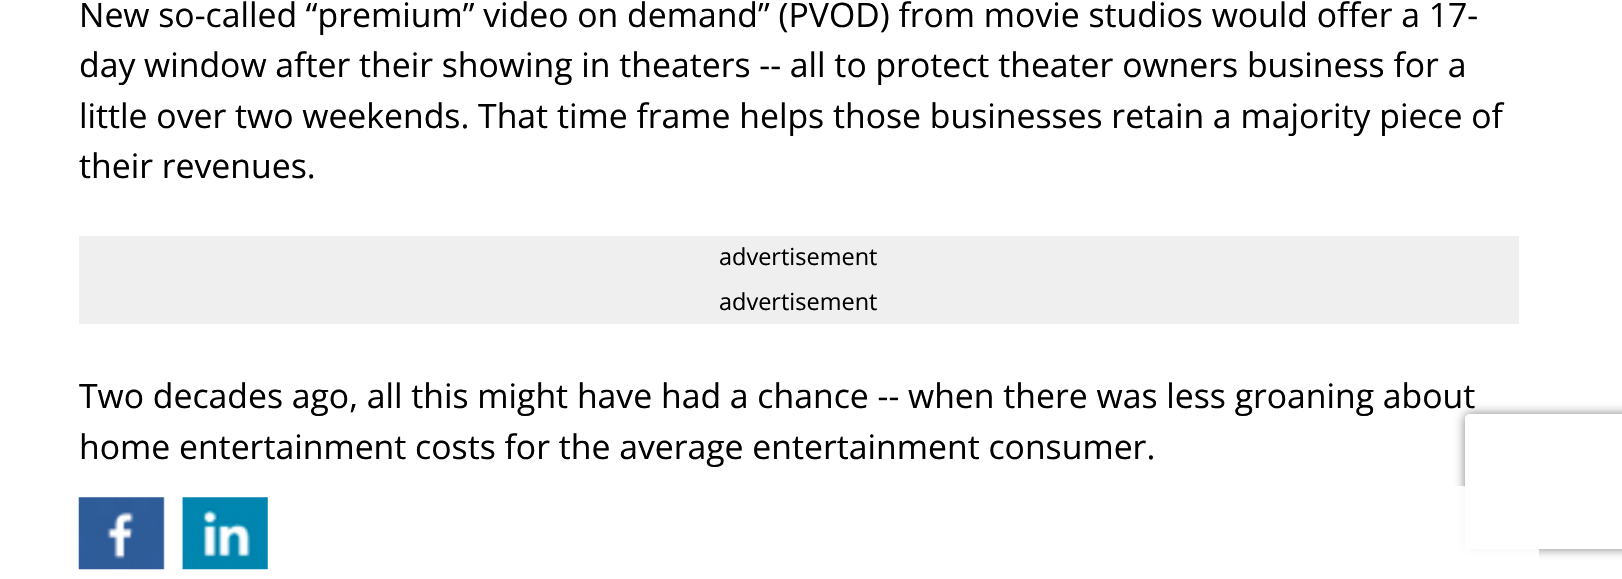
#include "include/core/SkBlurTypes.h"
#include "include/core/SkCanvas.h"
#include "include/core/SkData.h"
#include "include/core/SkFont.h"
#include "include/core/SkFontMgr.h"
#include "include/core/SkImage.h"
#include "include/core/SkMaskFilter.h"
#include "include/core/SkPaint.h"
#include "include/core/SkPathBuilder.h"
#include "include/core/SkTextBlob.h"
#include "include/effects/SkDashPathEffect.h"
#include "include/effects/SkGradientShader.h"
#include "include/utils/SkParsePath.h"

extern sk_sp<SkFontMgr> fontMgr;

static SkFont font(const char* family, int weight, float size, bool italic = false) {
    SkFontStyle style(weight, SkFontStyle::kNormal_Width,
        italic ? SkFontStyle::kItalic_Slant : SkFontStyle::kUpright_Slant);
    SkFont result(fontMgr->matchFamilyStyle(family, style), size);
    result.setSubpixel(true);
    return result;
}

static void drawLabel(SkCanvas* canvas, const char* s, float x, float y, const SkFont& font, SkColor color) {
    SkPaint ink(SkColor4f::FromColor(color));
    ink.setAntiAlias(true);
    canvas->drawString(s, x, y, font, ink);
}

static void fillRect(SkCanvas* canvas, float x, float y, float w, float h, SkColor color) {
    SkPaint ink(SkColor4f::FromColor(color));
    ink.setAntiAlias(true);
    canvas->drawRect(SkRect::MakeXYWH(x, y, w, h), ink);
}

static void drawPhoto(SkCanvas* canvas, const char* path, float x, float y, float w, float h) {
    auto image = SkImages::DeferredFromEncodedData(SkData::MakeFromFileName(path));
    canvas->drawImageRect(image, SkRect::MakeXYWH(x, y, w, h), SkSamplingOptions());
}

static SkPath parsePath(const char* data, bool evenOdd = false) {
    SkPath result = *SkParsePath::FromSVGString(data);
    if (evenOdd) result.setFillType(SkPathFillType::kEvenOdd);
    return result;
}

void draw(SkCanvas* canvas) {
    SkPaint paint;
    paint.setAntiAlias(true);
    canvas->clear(0xFFFFFFFF);
    SkFont font1 = font("Open Sans", 400, 33.75f);
    drawLabel(canvas, "New so-called “premium” video on demand” (PVOD) from movie studios would offer a 17-", 79, 27, font1, 0xFF000000);
    drawLabel(canvas, "day window after their showing in theaters -- all to protect theater owners business for a", 79, 77, font1, 0xFF000000);
    drawLabel(canvas, "little over two weekends. That time frame helps those businesses retain a majority piece of", 79, 128, font1, 0xFF000000);
    drawLabel(canvas, "their revenues.", 79, 178, font1, 0xFF000000);
    fillRect(canvas, 79, 236, 1440, 88, 0xFFEFEFEF);
    SkFont font2 = font("Open Sans", 400, 23.5f);
    drawLabel(canvas, "advertisement", 719, 265, font2, 0xFF000000);
    drawLabel(canvas, "advertisement", 719, 310, font2, 0xFF000000);
    canvas->save();
    canvas->clipPath(parsePath("M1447 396H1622V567H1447ZM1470 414H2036C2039 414 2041 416 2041 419V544C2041 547 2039 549 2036 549H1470C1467 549 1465 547 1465 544V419C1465 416 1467 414 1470 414Z", true), true);
    paint.setColor(0xFF808080);
    paint.setMaskFilter(SkMaskFilter::MakeBlur(kNormal_SkBlurStyle, 5.5f));
    canvas->drawRoundRect(SkRect::MakeXYWH(1465, 414, 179, 135), 5, 5, paint);
    paint.setMaskFilter(nullptr);
    canvas->restore();
    drawLabel(canvas, "Two decades ago, all this might have had a chance -- when there was less groaning about", 79, 408, font1, 0xFF000000);
    drawLabel(canvas, "home entertainment costs for the average entertainment consumer.", 79, 459, font1, 0xFF000000);
    fillRect(canvas, 1454, 486, 85, 74, 0xE6FFFFFF);
    drawPhoto(canvas, "assets/img1.png", 78, 497, 87, 73);
    drawPhoto(canvas, "assets/img2.png", 181, 497, 87, 73);
}
